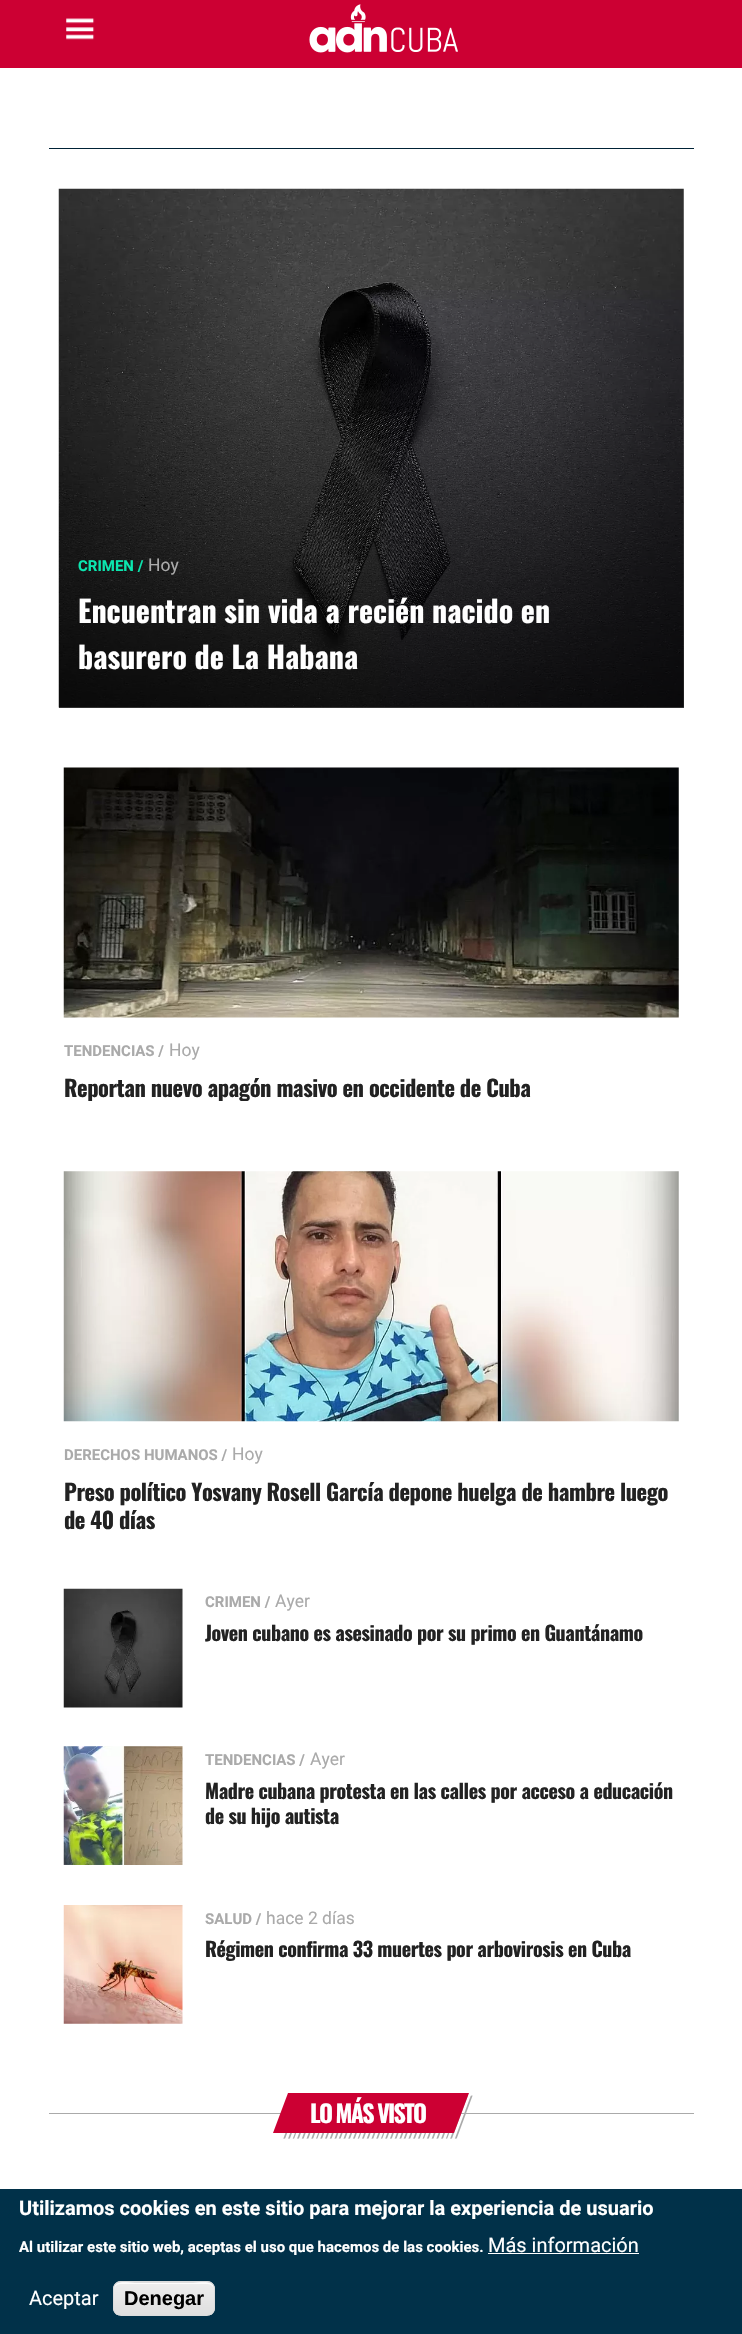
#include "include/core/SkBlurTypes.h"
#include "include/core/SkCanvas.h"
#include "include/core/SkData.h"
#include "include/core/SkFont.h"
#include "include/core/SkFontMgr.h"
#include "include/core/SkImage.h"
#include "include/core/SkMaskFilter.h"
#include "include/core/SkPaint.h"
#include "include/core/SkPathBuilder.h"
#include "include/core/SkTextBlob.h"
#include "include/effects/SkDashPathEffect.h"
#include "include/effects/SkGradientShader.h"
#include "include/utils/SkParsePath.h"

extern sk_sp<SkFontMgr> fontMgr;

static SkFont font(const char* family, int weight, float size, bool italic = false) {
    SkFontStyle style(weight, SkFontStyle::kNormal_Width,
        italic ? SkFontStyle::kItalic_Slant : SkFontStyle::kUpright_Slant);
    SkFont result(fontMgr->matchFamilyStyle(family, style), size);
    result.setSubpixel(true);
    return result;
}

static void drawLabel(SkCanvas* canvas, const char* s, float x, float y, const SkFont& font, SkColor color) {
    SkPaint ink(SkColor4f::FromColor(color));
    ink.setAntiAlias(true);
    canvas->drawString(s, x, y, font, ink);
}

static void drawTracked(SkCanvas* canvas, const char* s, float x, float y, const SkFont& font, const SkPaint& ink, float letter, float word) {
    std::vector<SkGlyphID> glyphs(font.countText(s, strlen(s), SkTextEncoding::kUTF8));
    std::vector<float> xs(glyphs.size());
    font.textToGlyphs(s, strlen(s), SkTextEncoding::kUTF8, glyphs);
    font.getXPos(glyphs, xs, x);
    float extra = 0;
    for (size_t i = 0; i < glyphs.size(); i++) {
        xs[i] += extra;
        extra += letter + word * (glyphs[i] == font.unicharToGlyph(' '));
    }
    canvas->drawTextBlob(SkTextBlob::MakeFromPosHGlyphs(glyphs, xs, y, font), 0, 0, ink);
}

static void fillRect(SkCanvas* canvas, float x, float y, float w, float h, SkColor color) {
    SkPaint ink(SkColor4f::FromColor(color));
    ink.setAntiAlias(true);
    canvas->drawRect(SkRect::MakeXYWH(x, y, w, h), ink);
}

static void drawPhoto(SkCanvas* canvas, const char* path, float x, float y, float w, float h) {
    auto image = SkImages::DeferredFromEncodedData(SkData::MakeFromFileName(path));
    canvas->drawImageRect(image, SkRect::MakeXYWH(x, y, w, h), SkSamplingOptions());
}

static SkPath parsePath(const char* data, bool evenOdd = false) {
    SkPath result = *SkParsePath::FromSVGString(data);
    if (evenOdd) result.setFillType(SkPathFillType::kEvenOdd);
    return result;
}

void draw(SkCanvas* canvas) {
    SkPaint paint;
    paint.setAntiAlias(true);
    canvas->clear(0xFFFFFFFF);
    fillRect(canvas, 0, 0, 742, 68, 0xFFCC0033);
    drawPhoto(canvas, "assets/img1.png", 66, 18, 29, 22);
    drawPhoto(canvas, "assets/img2.png", 309, 4, 149, 49);
    fillRect(canvas, 49, 148, 645, 1, 0xFF002236);
    drawPhoto(canvas, "assets/img3.png", 58, 188, 626, 520);
    {
        const SkColor colors[] = {0x00000000, 0xA6000000};
        const float stops[] = {0, 1};
        const SkPoint ends[] = {{371, 189}, {371, 708}};
        paint.setShader(SkGradientShader::MakeLinear(ends, colors, stops, 2, SkTileMode::kClamp));
        paint.setAlpha(255);
    }
    canvas->drawRect(SkRect::MakeXYWH(59, 209, 625, 499), paint);
    SkFont font1 = font("Roboto", 700, 15);
    drawLabel(canvas, "CRIMEN /", 78, 571, font1, 0xFF0BE6AF);
    SkFont font2 = font("Roboto", 400, 17.5f);
    drawLabel(canvas, "Hoy", 148, 571, font2, 0xFFAAAAAA);
    SkFont font3 = font("Oswald", 700, 30);
    drawLabel(canvas, "Encuentran sin vida a recién nacido en", 78, 623, font3, 0xFFFFFFFF);
    drawLabel(canvas, "basurero de La Habana", 78, 669, font3, 0xFFFFFFFF);
    drawPhoto(canvas, "assets/img4.png", 63, 767, 616, 251);
    drawLabel(canvas, "TENDENCIAS /", 64, 1056, font1, 0xFFAAAAAA);
    drawLabel(canvas, "Hoy", 169, 1056, font2, 0xFFAAAAAA);
    canvas->save();
    canvas->clipRect(SkRect::MakeXYWH(64, 1074, 615, 27));
    SkFont font4 = font("Oswald", 700, 22.5f);
    paint.setShader(nullptr);
    paint.setColor(0xFF222222);
    drawTracked(canvas, "Reportan nuevo apagón masivo en occidente de Cuba", 64, 1097, font4, paint, -0.45f, 0);
    canvas->restore();
    drawPhoto(canvas, "assets/img5.png", 63, 1171, 616, 251);
    drawLabel(canvas, "DERECHOS HUMANOS /", 64, 1460, font1, 0xFFAAAAAA);
    drawLabel(canvas, "Hoy", 232, 1460, font2, 0xFFAAAAAA);
    drawTracked(canvas, "Preso político Yosvany Rosell García depone huelga de hambre luego", 64, 1501, font4, paint, -0.45f, 0);
    drawTracked(canvas, "de 40 días", 64, 1529, font4, paint, -0.45f, 0);
    drawPhoto(canvas, "assets/img6.png", 63, 1588, 120, 120);
    drawLabel(canvas, "CRIMEN /", 205, 1607, font1, 0xFFAAAAAA);
    drawLabel(canvas, "Ayer", 275, 1607, font2, 0xFFAAAAAA);
    SkFont font5 = font("Oswald", 700, 20);
    drawTracked(canvas, "Joven cubano es asesinado por su primo en Guantánamo", 205, 1641, font5, paint, -0.4f, 0);
    drawPhoto(canvas, "assets/img7.png", 63, 1746, 120, 119);
    drawLabel(canvas, "TENDENCIAS /", 205, 1765, font1, 0xFFAAAAAA);
    drawLabel(canvas, "Ayer", 310, 1765, font2, 0xFFAAAAAA);
    drawTracked(canvas, "Madre cubana protesta en las calles por acceso a educación", 205, 1799, font5, paint, -0.4f, 0);
    drawTracked(canvas, "de su hijo autista", 205, 1824, font5, paint, -0.4f, 0);
    drawPhoto(canvas, "assets/img8.png", 63, 1905, 120, 119);
    drawLabel(canvas, "SALUD /", 205, 1924, font1, 0xFFAAAAAA);
    drawLabel(canvas, "hace 2 días", 266, 1924, font2, 0xFFAAAAAA);
    drawTracked(canvas, "Régimen confirma 33 muertes por arbovirosis en Cuba", 205, 1957, font5, paint, -0.4f, 0);
    fillRect(canvas, 49, 2113, 645, 1, 0xFFAAAAAA);
    drawPhoto(canvas, "assets/img9.png", 283, 2095, 190, 44);
    paint.setColor(0xFFCC0033);
    canvas->drawPath(parsePath("M288 2093H469L454 2133H273Z"), paint);
    SkFont font6 = font("Oswald", 700, 24);
    paint.setColor(0xFFFFFFFF);
    drawTracked(canvas, "LO MÁS VISTO", 310, 2123, font6, paint, -1.75f, 0);
    fillRect(canvas, 0, 2189, 742, 145, 0xFF013149);
    SkFont font7 = font("Roboto", 700, 20);
    drawLabel(canvas, "Utilizamos cookies en este sitio para mejorar la experiencia de usuario", 19, 2215, font7, 0xFFFFFFFF);
    drawLabel(canvas, "Al utilizar este sitio web, aceptas el uso que hacemos de las cookies.", 19, 2252, font1, 0xFFFFFFFF);
    SkFont font8 = font("Roboto", 400, 20);
    drawLabel(canvas, "Más información", 488, 2252, font8, 0xFFFFFFFF);
    fillRect(canvas, 488, 2253, 151, 1, 0xFFFFFFFF);
    drawLabel(canvas, "Aceptar", 29, 2305, font8, 0xFFFFFFFF);
    canvas->save();
    canvas->clipPath(parsePath("M121 2281H207C211.5 2281 215 2284.5 215 2289V2308C215 2312.5 211.5 2316 207 2316H121C116.5 2316 113 2312.5 113 2308V2289C113 2284.5 116.5 2281 121 2281Z"), true);
    {
        const SkColor colors[] = {0xFFEDEDED, 0xFFDFDFDF};
        const float stops[] = {0.05f, 1};
        const SkPoint ends[] = {{164, 2250}, {164, 2283}};
        paint.setShader(SkGradientShader::MakeLinear(ends, colors, stops, 2, SkTileMode::kClamp));
        paint.setAlpha(255);
    }
    canvas->drawRect(SkRect::MakeXYWH(113, 2281, 102, 2), paint);
    {
        const SkColor colors[] = {0xFFEDEDED, 0xFFDFDFDF};
        const float stops[] = {0.05f, 1};
        const SkPoint ends[] = {{164, 2283}, {164, 2315}};
        paint.setShader(SkGradientShader::MakeLinear(ends, colors, stops, 2, SkTileMode::kClamp));
        paint.setAlpha(255);
    }
    canvas->drawRect(SkRect::MakeXYWH(113, 2283, 102, 32), paint);
    canvas->restore();
    paint.setShader(nullptr);
    paint.setColor(0xFFFFFFFF);
    canvas->drawPath(parsePath("M120 2284H208C211 2284 214 2287 214 2290C214 2279 200 2283 193 2283H135C128 2283 114 2279 114 2290C114 2287 117 2284 120 2284Z"), paint);
    paint.setStroke(true);
    paint.setStrokeWidth(1);
    paint.setColor(0xFFDCDCDC);
    canvas->drawRoundRect(SkRect::MakeXYWH(113.5f, 2281.5f, 101, 34), 7.5f, 7.5f, paint);
    SkFont font9 = font("Liberation Sans", 700, 20);
    drawLabel(canvas, "Denegar", 124, 2305, font9, 0xFF000000);
}
